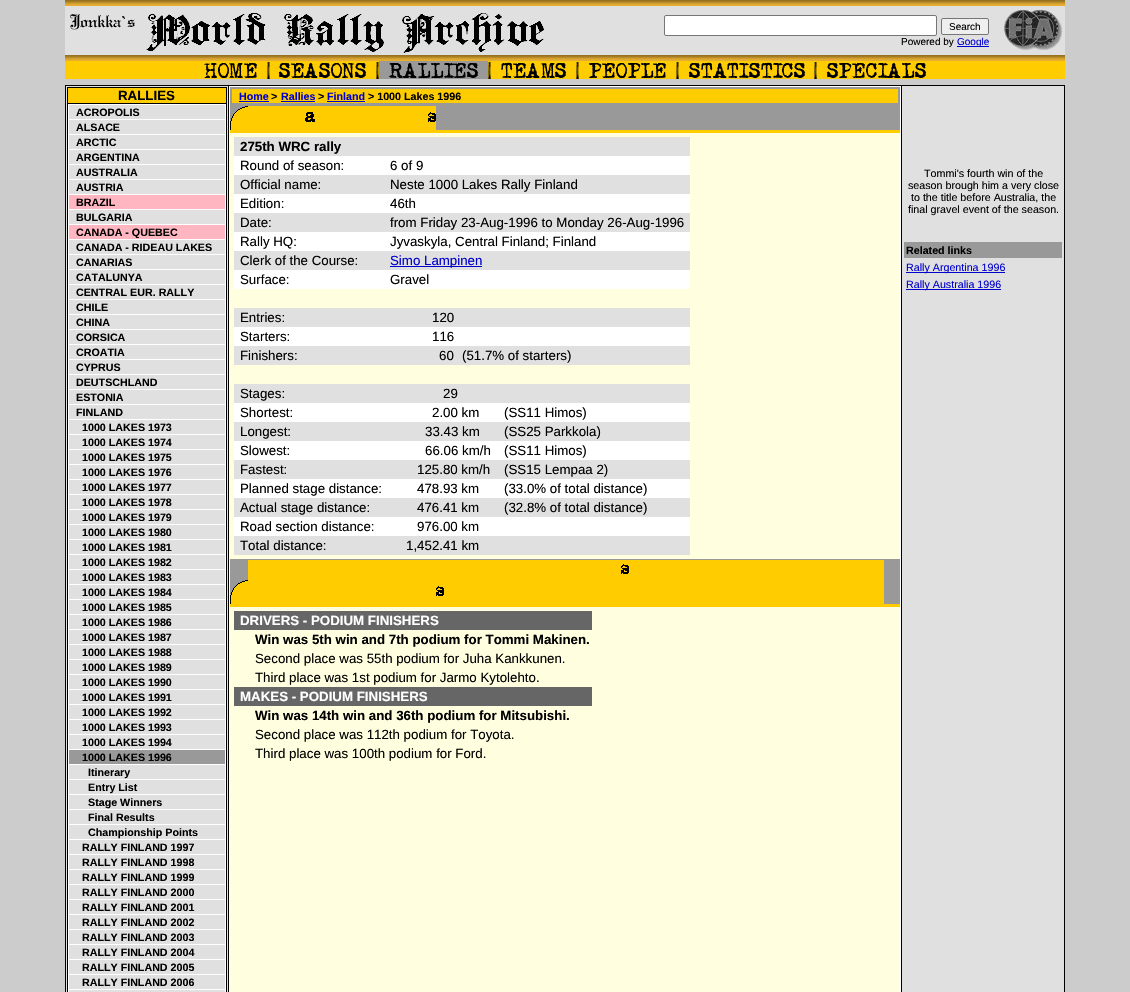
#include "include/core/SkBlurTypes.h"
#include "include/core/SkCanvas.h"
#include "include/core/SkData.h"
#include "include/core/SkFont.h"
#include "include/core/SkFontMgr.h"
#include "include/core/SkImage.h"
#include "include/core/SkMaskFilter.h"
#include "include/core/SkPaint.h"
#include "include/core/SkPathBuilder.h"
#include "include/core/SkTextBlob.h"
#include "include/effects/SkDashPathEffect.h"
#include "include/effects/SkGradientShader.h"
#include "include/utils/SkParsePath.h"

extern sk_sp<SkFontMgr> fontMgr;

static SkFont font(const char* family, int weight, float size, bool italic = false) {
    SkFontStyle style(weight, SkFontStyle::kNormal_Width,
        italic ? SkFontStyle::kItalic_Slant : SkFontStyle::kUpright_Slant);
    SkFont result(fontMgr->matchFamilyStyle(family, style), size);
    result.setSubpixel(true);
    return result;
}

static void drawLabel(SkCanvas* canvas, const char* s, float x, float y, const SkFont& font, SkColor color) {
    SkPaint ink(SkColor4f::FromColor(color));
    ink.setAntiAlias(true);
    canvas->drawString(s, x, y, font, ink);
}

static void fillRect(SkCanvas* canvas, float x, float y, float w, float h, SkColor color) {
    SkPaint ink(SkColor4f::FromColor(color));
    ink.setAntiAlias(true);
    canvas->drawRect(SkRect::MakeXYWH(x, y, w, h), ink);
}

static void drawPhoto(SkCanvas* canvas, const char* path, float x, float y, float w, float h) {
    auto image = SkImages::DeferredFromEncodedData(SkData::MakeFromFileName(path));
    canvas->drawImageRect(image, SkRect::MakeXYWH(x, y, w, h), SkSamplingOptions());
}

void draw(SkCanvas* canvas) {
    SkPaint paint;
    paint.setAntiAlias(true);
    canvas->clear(0xFFCCCCCC);
    drawPhoto(canvas, "assets/img1.png", 65, 0, 1000, 6);
    fillRect(canvas, 65, 6, 1000, 49, 0xFFE0E0E0);
    drawPhoto(canvas, "assets/img2.png", 70, 14, 65, 16);
    drawPhoto(canvas, "assets/img3.png", 146, 13, 398, 40);
    paint.setColor(0xFFFFFFFF);
    canvas->drawRoundRect(SkRect::MakeXYWH(664.5f, 15.5f, 272, 20), 1.5f, 1.5f, paint);
    paint.setStroke(true);
    paint.setStrokeWidth(1);
    paint.setColor(0xFF767676);
    canvas->drawRoundRect(SkRect::MakeXYWH(664.5f, 15.5f, 272, 20), 1.5f, 1.5f, paint);
    paint.setStroke(false);
    paint.setColor(0xFFEFEFEF);
    canvas->drawRoundRect(SkRect::MakeXYWH(941.5f, 18.5f, 47, 16), 1.5f, 1.5f, paint);
    paint.setStroke(true);
    paint.setColor(0xFF767676);
    canvas->drawRoundRect(SkRect::MakeXYWH(941.5f, 18.5f, 47, 16), 1.5f, 1.5f, paint);
    SkFont font1 = font("Liberation Sans", 400, 10);
    drawLabel(canvas, "Search", 949, 30, font1, 0xFF000000);
    drawLabel(canvas, "Powered by", 901, 45, font1, 0xFF000000);
    fillRect(canvas, 957, 46, 32, 1, 0xFF0000CD);
    drawLabel(canvas, "Google", 957, 45, font1, 0xFF0000CD);
    drawPhoto(canvas, "assets/img4.png", 1004, 9, 59, 41);
    drawPhoto(canvas, "assets/img1.png", 65, 55, 1000, 6);
    fillRect(canvas, 65, 61, 1000, 18, 0xFFFFCC00);
    drawPhoto(canvas, "assets/img5.png", 204, 63, 53, 15);
    drawPhoto(canvas, "assets/img6.png", 267, 62, 3, 17);
    drawPhoto(canvas, "assets/img7.png", 279, 63, 88, 15);
    drawPhoto(canvas, "assets/img6.png", 376, 62, 3, 17);
    fillRect(canvas, 379, 61, 109, 18, 0xFF999999);
    drawPhoto(canvas, "assets/img6.png", 488, 62, 3, 17);
    drawPhoto(canvas, "assets/img8.png", 501, 62, 66, 16);
    drawPhoto(canvas, "assets/img6.png", 576, 62, 3, 17);
    drawPhoto(canvas, "assets/img6.png", 676, 62, 3, 17);
    drawPhoto(canvas, "assets/img9.png", 689, 62, 117, 16);
    drawPhoto(canvas, "assets/img6.png", 814, 62, 3, 17);
    drawPhoto(canvas, "assets/img10.png", 389, 63, 90, 15);
    drawPhoto(canvas, "assets/img11.png", 589, 63, 77, 15);
    drawPhoto(canvas, "assets/img12.png", 827, 63, 100, 15);
    fillRect(canvas, 65, 85, 1000, 907, 0xFF000000);
    fillRect(canvas, 66, 86, 162, 906, 0xFFE0E0E0);
    fillRect(canvas, 67, 87, 160, 905, 0xFF000000);
    fillRect(canvas, 68, 88, 158, 15, 0xFFFFCC00);
    SkFont font2 = font("Liberation Sans", 700, 13.3f);
    drawLabel(canvas, "RALLIES", 118, 100, font2, 0xFF000000);
    fillRect(canvas, 68, 104, 158, 888, 0xFFFFFFFF);
    fillRect(canvas, 69, 105, 156, 14, 0xFFE0E0E0);
    SkFont font3 = font("Liberation Sans", 700, 10.7f);
    drawLabel(canvas, "ACROPOLIS", 76, 116, font3, 0xFF000000);
    fillRect(canvas, 69, 120, 156, 14, 0xFFE0E0E0);
    drawLabel(canvas, "ALSACE", 76, 131, font3, 0xFF000000);
    fillRect(canvas, 69, 135, 156, 14, 0xFFE0E0E0);
    drawLabel(canvas, "ARCTIC", 76, 146, font3, 0xFF000000);
    fillRect(canvas, 69, 150, 156, 14, 0xFFE0E0E0);
    drawLabel(canvas, "ARGENTINA", 76, 161, font3, 0xFF000000);
    fillRect(canvas, 69, 165, 156, 14, 0xFFE0E0E0);
    drawLabel(canvas, "AUSTRALIA", 76, 176, font3, 0xFF000000);
    fillRect(canvas, 69, 180, 156, 14, 0xFFE0E0E0);
    drawLabel(canvas, "AUSTRIA", 76, 191, font3, 0xFF000000);
    fillRect(canvas, 69, 195, 156, 14, 0xFFFFB6C1);
    drawLabel(canvas, "BRAZIL", 76, 206, font3, 0xFF000000);
    fillRect(canvas, 69, 210, 156, 14, 0xFFE0E0E0);
    drawLabel(canvas, "BULGARIA", 76, 221, font3, 0xFF000000);
    fillRect(canvas, 69, 225, 156, 14, 0xFFFFB6C1);
    drawLabel(canvas, "CANADA - QUEBEC", 76, 236, font3, 0xFF000000);
    fillRect(canvas, 69, 240, 156, 14, 0xFFE0E0E0);
    drawLabel(canvas, "CANADA - RIDEAU LAKES", 76, 251, font3, 0xFF000000);
    fillRect(canvas, 69, 255, 156, 14, 0xFFE0E0E0);
    drawLabel(canvas, "CANARIAS", 76, 266, font3, 0xFF000000);
    fillRect(canvas, 69, 270, 156, 14, 0xFFE0E0E0);
    drawLabel(canvas, "CATALUNYA", 76, 281, font3, 0xFF000000);
    fillRect(canvas, 69, 285, 156, 14, 0xFFE0E0E0);
    drawLabel(canvas, "CENTRAL EUR. RALLY", 76, 296, font3, 0xFF000000);
    fillRect(canvas, 69, 300, 156, 14, 0xFFE0E0E0);
    drawLabel(canvas, "CHILE", 76, 311, font3, 0xFF000000);
    fillRect(canvas, 69, 315, 156, 14, 0xFFE0E0E0);
    drawLabel(canvas, "CHINA", 76, 326, font3, 0xFF000000);
    fillRect(canvas, 69, 330, 156, 14, 0xFFE0E0E0);
    drawLabel(canvas, "CORSICA", 76, 341, font3, 0xFF000000);
    fillRect(canvas, 69, 345, 156, 14, 0xFFE0E0E0);
    drawLabel(canvas, "CROATIA", 76, 356, font3, 0xFF000000);
    fillRect(canvas, 69, 360, 156, 14, 0xFFE0E0E0);
    drawLabel(canvas, "CYPRUS", 76, 371, font3, 0xFF000000);
    fillRect(canvas, 69, 375, 156, 14, 0xFFE0E0E0);
    drawLabel(canvas, "DEUTSCHLAND", 76, 386, font3, 0xFF000000);
    fillRect(canvas, 69, 390, 156, 14, 0xFFE0E0E0);
    drawLabel(canvas, "ESTONIA", 76, 401, font3, 0xFF000000);
    fillRect(canvas, 69, 405, 156, 14, 0xFFE0E0E0);
    drawLabel(canvas, "FINLAND", 76, 416, font3, 0xFF000000);
    fillRect(canvas, 69, 420, 156, 14, 0xFFE0E0E0);
    drawLabel(canvas, "1000 LAKES 1973", 82, 431, font3, 0xFF000000);
    fillRect(canvas, 69, 435, 156, 14, 0xFFE0E0E0);
    drawLabel(canvas, "1000 LAKES 1974", 82, 446, font3, 0xFF000000);
    fillRect(canvas, 69, 450, 156, 14, 0xFFE0E0E0);
    drawLabel(canvas, "1000 LAKES 1975", 82, 461, font3, 0xFF000000);
    fillRect(canvas, 69, 465, 156, 14, 0xFFE0E0E0);
    drawLabel(canvas, "1000 LAKES 1976", 82, 476, font3, 0xFF000000);
    fillRect(canvas, 69, 480, 156, 14, 0xFFE0E0E0);
    drawLabel(canvas, "1000 LAKES 1977", 82, 491, font3, 0xFF000000);
    fillRect(canvas, 69, 495, 156, 14, 0xFFE0E0E0);
    drawLabel(canvas, "1000 LAKES 1978", 82, 506, font3, 0xFF000000);
    fillRect(canvas, 69, 510, 156, 14, 0xFFE0E0E0);
    drawLabel(canvas, "1000 LAKES 1979", 82, 521, font3, 0xFF000000);
    fillRect(canvas, 69, 525, 156, 14, 0xFFE0E0E0);
    drawLabel(canvas, "1000 LAKES 1980", 82, 536, font3, 0xFF000000);
    fillRect(canvas, 69, 540, 156, 14, 0xFFE0E0E0);
    drawLabel(canvas, "1000 LAKES 1981", 82, 551, font3, 0xFF000000);
    fillRect(canvas, 69, 555, 156, 14, 0xFFE0E0E0);
    drawLabel(canvas, "1000 LAKES 1982", 82, 566, font3, 0xFF000000);
    fillRect(canvas, 69, 570, 156, 14, 0xFFE0E0E0);
    drawLabel(canvas, "1000 LAKES 1983", 82, 581, font3, 0xFF000000);
    fillRect(canvas, 69, 585, 156, 14, 0xFFE0E0E0);
    drawLabel(canvas, "1000 LAKES 1984", 82, 596, font3, 0xFF000000);
    fillRect(canvas, 69, 600, 156, 14, 0xFFE0E0E0);
    drawLabel(canvas, "1000 LAKES 1985", 82, 611, font3, 0xFF000000);
    fillRect(canvas, 69, 615, 156, 14, 0xFFE0E0E0);
    drawLabel(canvas, "1000 LAKES 1986", 82, 626, font3, 0xFF000000);
    fillRect(canvas, 69, 630, 156, 14, 0xFFE0E0E0);
    drawLabel(canvas, "1000 LAKES 1987", 82, 641, font3, 0xFF000000);
    fillRect(canvas, 69, 645, 156, 14, 0xFFE0E0E0);
    drawLabel(canvas, "1000 LAKES 1988", 82, 656, font3, 0xFF000000);
    fillRect(canvas, 69, 660, 156, 14, 0xFFE0E0E0);
    drawLabel(canvas, "1000 LAKES 1989", 82, 671, font3, 0xFF000000);
    fillRect(canvas, 69, 675, 156, 14, 0xFFE0E0E0);
    drawLabel(canvas, "1000 LAKES 1990", 82, 686, font3, 0xFF000000);
    fillRect(canvas, 69, 690, 156, 14, 0xFFE0E0E0);
    drawLabel(canvas, "1000 LAKES 1991", 82, 701, font3, 0xFF000000);
    fillRect(canvas, 69, 705, 156, 14, 0xFFE0E0E0);
    drawLabel(canvas, "1000 LAKES 1992", 82, 716, font3, 0xFF000000);
    fillRect(canvas, 69, 720, 156, 14, 0xFFE0E0E0);
    drawLabel(canvas, "1000 LAKES 1993", 82, 731, font3, 0xFF000000);
    fillRect(canvas, 69, 735, 156, 14, 0xFFE0E0E0);
    drawLabel(canvas, "1000 LAKES 1994", 82, 746, font3, 0xFF000000);
    fillRect(canvas, 69, 750, 156, 14, 0xFF999999);
    drawLabel(canvas, "1000 LAKES 1996", 82, 761, font3, 0xFF000000);
    fillRect(canvas, 69, 765, 156, 14, 0xFFE0E0E0);
    drawLabel(canvas, "Itinerary", 88, 776, font3, 0xFF000000);
    fillRect(canvas, 69, 780, 156, 14, 0xFFE0E0E0);
    drawLabel(canvas, "Entry List", 88, 791, font3, 0xFF000000);
    fillRect(canvas, 69, 795, 156, 14, 0xFFE0E0E0);
    drawLabel(canvas, "Stage Winners", 88, 806, font3, 0xFF000000);
    fillRect(canvas, 69, 810, 156, 14, 0xFFE0E0E0);
    drawLabel(canvas, "Final Results", 88, 821, font3, 0xFF000000);
    fillRect(canvas, 69, 825, 156, 14, 0xFFE0E0E0);
    drawLabel(canvas, "Championship Points", 88, 836, font3, 0xFF000000);
    fillRect(canvas, 69, 840, 156, 14, 0xFFE0E0E0);
    drawLabel(canvas, "RALLY FINLAND 1997", 82, 851, font3, 0xFF000000);
    fillRect(canvas, 69, 855, 156, 14, 0xFFE0E0E0);
    drawLabel(canvas, "RALLY FINLAND 1998", 82, 866, font3, 0xFF000000);
    fillRect(canvas, 69, 870, 156, 14, 0xFFE0E0E0);
    drawLabel(canvas, "RALLY FINLAND 1999", 82, 881, font3, 0xFF000000);
    fillRect(canvas, 69, 885, 156, 14, 0xFFE0E0E0);
    drawLabel(canvas, "RALLY FINLAND 2000", 82, 896, font3, 0xFF000000);
    fillRect(canvas, 69, 900, 156, 14, 0xFFE0E0E0);
    drawLabel(canvas, "RALLY FINLAND 2001", 82, 911, font3, 0xFF000000);
    fillRect(canvas, 69, 915, 156, 14, 0xFFE0E0E0);
    drawLabel(canvas, "RALLY FINLAND 2002", 82, 926, font3, 0xFF000000);
    fillRect(canvas, 69, 930, 156, 14, 0xFFE0E0E0);
    drawLabel(canvas, "RALLY FINLAND 2003", 82, 941, font3, 0xFF000000);
    fillRect(canvas, 69, 945, 156, 14, 0xFFE0E0E0);
    drawLabel(canvas, "RALLY FINLAND 2004", 82, 956, font3, 0xFF000000);
    fillRect(canvas, 69, 960, 156, 14, 0xFFE0E0E0);
    drawLabel(canvas, "RALLY FINLAND 2005", 82, 971, font3, 0xFF000000);
    fillRect(canvas, 69, 975, 156, 14, 0xFFE0E0E0);
    drawLabel(canvas, "RALLY FINLAND 2006", 82, 986, font3, 0xFF000000);
    fillRect(canvas, 69, 990, 156, 2, 0xFFE0E0E0);
    fillRect(canvas, 229, 86, 672, 906, 0xFFFFFFFF);
    paint.setColor(0xFF999999);
    canvas->drawRect(SkRect::MakeXYWH(230.5f, 87.5f, 669, 17), paint);
    paint.setStroke(false);
    paint.setColor(0xFFFFCC00);
    canvas->drawRect(SkRect::MakeXYWH(231.5f, 88.5f, 667, 15), paint);
    paint.setStroke(true);
    paint.setColor(0xFF999999);
    canvas->drawRect(SkRect::MakeXYWH(231.5f, 88.5f, 667, 15), paint);
    drawLabel(canvas, "Home", 239, 100, font3, 0xFF0000CD);
    fillRect(canvas, 239, 101, 30, 1, 0xFF0000CD);
    drawLabel(canvas, ">", 271, 100, font3, 0xFF000000);
    drawLabel(canvas, "Rallies", 281, 100, font3, 0xFF0000CD);
    fillRect(canvas, 281, 101, 34, 1, 0xFF0000CD);
    drawLabel(canvas, ">", 318, 100, font3, 0xFF000000);
    drawLabel(canvas, "Finland", 327, 100, font3, 0xFF0000CD);
    fillRect(canvas, 327, 101, 38, 1, 0xFF0000CD);
    drawLabel(canvas, "> 1000 Lakes 1996", 368, 100, font3, 0xFF000000);
    fillRect(canvas, 230, 105, 670, 25, 0xFF999999);
    drawPhoto(canvas, "assets/img13.png", 230, 106, 18, 24);
    fillRect(canvas, 248, 106, 188, 24, 0xFFFFCC00);
    drawPhoto(canvas, "assets/img14.png", 305, 112, 10, 10);
    drawPhoto(canvas, "assets/img15.png", 428, 112, 8, 10);
    fillRect(canvas, 230, 130, 670, 3, 0xFFFFCC00);
    fillRect(canvas, 230, 133, 670, 426, 0xFFFFFFE0);
    fillRect(canvas, 234, 137, 456, 19, 0xFFE0E0E0);
    drawLabel(canvas, "275th WRC rally", 240, 151, font2, 0xFF000000);
    fillRect(canvas, 234, 156, 456, 19, 0xFFFFFFFF);
    SkFont font4 = font("Liberation Sans", 400, 13.3f);
    drawLabel(canvas, "Round of season:", 240, 170, font4, 0xFF000000);
    drawLabel(canvas, "6 of 9", 390, 170, font4, 0xFF000000);
    fillRect(canvas, 234, 175, 456, 19, 0xFFE0E0E0);
    drawLabel(canvas, "Official name:", 240, 189, font4, 0xFF000000);
    drawLabel(canvas, "Neste 1000 Lakes Rally Finland", 390, 189, font4, 0xFF000000);
    fillRect(canvas, 234, 194, 456, 19, 0xFFFFFFFF);
    drawLabel(canvas, "Edition:", 240, 208, font4, 0xFF000000);
    drawLabel(canvas, "46th", 390, 208, font4, 0xFF000000);
    fillRect(canvas, 234, 213, 456, 19, 0xFFE0E0E0);
    drawLabel(canvas, "Date:", 240, 227, font4, 0xFF000000);
    drawLabel(canvas, "from Friday 23-Aug-1996 to Monday 26-Aug-1996", 390, 227, font4, 0xFF000000);
    fillRect(canvas, 234, 232, 456, 19, 0xFFFFFFFF);
    drawLabel(canvas, "Rally HQ:", 240, 246, font4, 0xFF000000);
    drawLabel(canvas, "Jyvaskyla, Central Finland; Finland", 390, 246, font4, 0xFF000000);
    fillRect(canvas, 234, 251, 456, 19, 0xFFE0E0E0);
    drawLabel(canvas, "Clerk of the Course:", 240, 265, font4, 0xFF000000);
    fillRect(canvas, 390, 266, 92, 1, 0xFF0000CD);
    drawLabel(canvas, "Simo Lampinen", 390, 265, font4, 0xFF0000CD);
    fillRect(canvas, 234, 270, 456, 19, 0xFFFFFFFF);
    drawLabel(canvas, "Surface:", 240, 284, font4, 0xFF000000);
    drawLabel(canvas, "Gravel", 390, 284, font4, 0xFF000000);
    fillRect(canvas, 234, 308, 456, 19, 0xFFE0E0E0);
    drawLabel(canvas, "Entries:", 240, 322, font4, 0xFF000000);
    drawLabel(canvas, "120", 432, 322, font4, 0xFF000000);
    fillRect(canvas, 234, 327, 456, 19, 0xFFFFFFFF);
    drawLabel(canvas, "Starters:", 240, 341, font4, 0xFF000000);
    drawLabel(canvas, "116", 432, 341, font4, 0xFF000000);
    fillRect(canvas, 234, 346, 456, 19, 0xFFE0E0E0);
    drawLabel(canvas, "Finishers:", 240, 360, font4, 0xFF000000);
    drawLabel(canvas, "60", 439, 360, font4, 0xFF000000);
    drawLabel(canvas, "(51.7% of starters)", 462, 360, font4, 0xFF000000);
    fillRect(canvas, 234, 384, 456, 19, 0xFFE0E0E0);
    drawLabel(canvas, "Stages:", 240, 398, font4, 0xFF000000);
    drawLabel(canvas, "29", 443, 398, font4, 0xFF000000);
    fillRect(canvas, 234, 403, 456, 19, 0xFFFFFFFF);
    drawLabel(canvas, "Shortest:", 240, 417, font4, 0xFF000000);
    drawLabel(canvas, "2.00 km", 432, 417, font4, 0xFF000000);
    drawLabel(canvas, "(SS11 Himos)", 504, 417, font4, 0xFF000000);
    fillRect(canvas, 234, 422, 456, 19, 0xFFE0E0E0);
    drawLabel(canvas, "Longest:", 240, 436, font4, 0xFF000000);
    drawLabel(canvas, "33.43 km", 425, 436, font4, 0xFF000000);
    drawLabel(canvas, "(SS25 Parkkola)", 504, 436, font4, 0xFF000000);
    fillRect(canvas, 234, 441, 456, 19, 0xFFFFFFFF);
    drawLabel(canvas, "Slowest:", 240, 455, font4, 0xFF000000);
    drawLabel(canvas, "66.06 km/h", 425, 455, font4, 0xFF000000);
    drawLabel(canvas, "(SS11 Himos)", 504, 455, font4, 0xFF000000);
    fillRect(canvas, 234, 460, 456, 19, 0xFFE0E0E0);
    drawLabel(canvas, "Fastest:", 240, 474, font4, 0xFF000000);
    drawLabel(canvas, "125.80 km/h", 417, 474, font4, 0xFF000000);
    drawLabel(canvas, "(SS15 Lempaa 2)", 504, 474, font4, 0xFF000000);
    fillRect(canvas, 234, 479, 456, 19, 0xFFFFFFFF);
    drawLabel(canvas, "Planned stage distance:", 240, 493, font4, 0xFF000000);
    drawLabel(canvas, "478.93 km", 417, 493, font4, 0xFF000000);
    drawLabel(canvas, "(33.0% of total distance)", 504, 493, font4, 0xFF000000);
    fillRect(canvas, 234, 498, 456, 19, 0xFFE0E0E0);
    drawLabel(canvas, "Actual stage distance:", 240, 512, font4, 0xFF000000);
    drawLabel(canvas, "476.41 km", 417, 512, font4, 0xFF000000);
    drawLabel(canvas, "(32.8% of total distance)", 504, 512, font4, 0xFF000000);
    fillRect(canvas, 234, 517, 456, 19, 0xFFFFFFFF);
    drawLabel(canvas, "Road section distance:", 240, 531, font4, 0xFF000000);
    drawLabel(canvas, "976.00 km", 417, 531, font4, 0xFF000000);
    fillRect(canvas, 234, 536, 456, 19, 0xFFE0E0E0);
    drawLabel(canvas, "Total distance:", 240, 550, font4, 0xFF000000);
    drawLabel(canvas, "1,452.41 km", 406, 550, font4, 0xFF000000);
    fillRect(canvas, 230, 559, 670, 45, 0xFF999999);
    drawPhoto(canvas, "assets/img13.png", 230, 580, 18, 24);
    fillRect(canvas, 248, 560, 636, 44, 0xFFFFCC00);
    drawPhoto(canvas, "assets/img15.png", 621, 564, 8, 10);
    drawPhoto(canvas, "assets/img15.png", 436, 586, 8, 10);
    fillRect(canvas, 230, 604, 670, 3, 0xFFFFCC00);
    fillRect(canvas, 230, 607, 670, 385, 0xFFFFFFE0);
    fillRect(canvas, 234, 611, 358, 19, 0xFF666666);
    drawLabel(canvas, "DRIVERS - PODIUM FINISHERS", 240, 625, font2, 0xFFFFFFFF);
    drawLabel(canvas, "Win was 5th win and 7th podium for Tommi Makinen.", 255, 644, font2, 0xFF000000);
    drawLabel(canvas, "Second place was 55th podium for Juha Kankkunen.", 255, 663, font4, 0xFF000000);
    drawLabel(canvas, "Third place was 1st podium for Jarmo Kytolehto.", 255, 682, font4, 0xFF000000);
    fillRect(canvas, 234, 687, 358, 19, 0xFF666666);
    drawLabel(canvas, "MAKES - PODIUM FINISHERS", 240, 701, font2, 0xFFFFFFFF);
    drawLabel(canvas, "Win was 14th win and 36th podium for Mitsubishi.", 255, 720, font2, 0xFF000000);
    drawLabel(canvas, "Second place was 112th podium for Toyota.", 255, 739, font4, 0xFF000000);
    drawLabel(canvas, "Third place was 100th podium for Ford.", 255, 758, font4, 0xFF000000);
    fillRect(canvas, 902, 86, 162, 906, 0xFFE0E0E0);
    SkFont font5 = font("Liberation Sans", 400, 10.7f);
    drawLabel(canvas, "Tommi's fourth win of the", 924, 177, font5, 0xFF000000);
    drawLabel(canvas, "season brough him a very close", 908, 189, font5, 0xFF000000);
    drawLabel(canvas, "to the title before Australia, the", 911, 201, font5, 0xFF000000);
    drawLabel(canvas, "final gravel event of the season.", 908, 213, font5, 0xFF000000);
    fillRect(canvas, 904, 242, 158, 16, 0xFF999999);
    drawLabel(canvas, "Related links", 906, 254, font3, 0xFF000000);
    fillRect(canvas, 906, 272, 99, 1, 0xFF0000CD);
    drawLabel(canvas, "Rally Argentina 1996", 906, 271, font5, 0xFF0000CD);
    fillRect(canvas, 906, 289, 95, 1, 0xFF0000CD);
    drawLabel(canvas, "Rally Australia 1996", 906, 288, font5, 0xFF0000CD);
}
